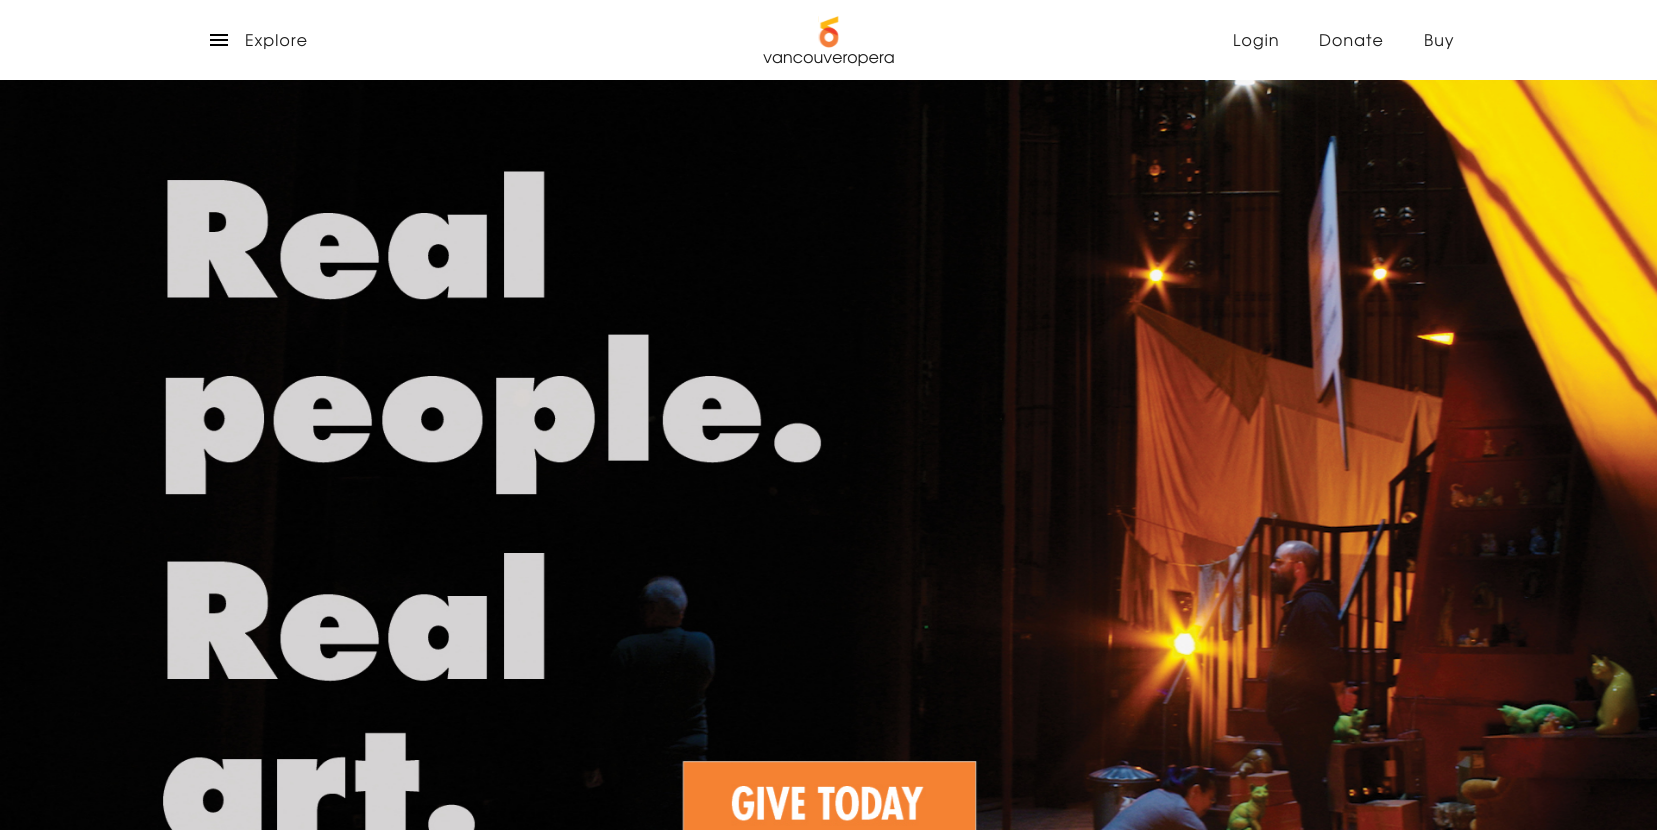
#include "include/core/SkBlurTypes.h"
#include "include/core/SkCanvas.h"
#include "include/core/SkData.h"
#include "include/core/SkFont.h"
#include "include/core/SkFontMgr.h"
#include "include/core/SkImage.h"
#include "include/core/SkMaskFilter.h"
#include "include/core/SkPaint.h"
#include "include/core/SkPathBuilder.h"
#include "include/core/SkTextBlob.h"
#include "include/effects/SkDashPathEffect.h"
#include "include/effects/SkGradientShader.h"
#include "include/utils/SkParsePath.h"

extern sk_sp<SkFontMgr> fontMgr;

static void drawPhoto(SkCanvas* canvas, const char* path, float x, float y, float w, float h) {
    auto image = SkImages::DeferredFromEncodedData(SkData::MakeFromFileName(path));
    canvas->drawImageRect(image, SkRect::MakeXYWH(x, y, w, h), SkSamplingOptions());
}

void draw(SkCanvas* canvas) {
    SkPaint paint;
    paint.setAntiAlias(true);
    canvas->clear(0xFFFFFFFF);
    drawPhoto(canvas, "assets/img1.png", 210, 34, 18, 12);
    drawPhoto(canvas, "assets/img2.png", 246, 34, 61, 16);
    drawPhoto(canvas, "assets/img3.png", 818, 16, 21, 32);
    drawPhoto(canvas, "assets/img4.png", 763, 54, 85, 10);
    drawPhoto(canvas, "assets/img5.png", 847, 54, 47, 13);
    drawPhoto(canvas, "assets/img6.png", 1234, 34, 44, 16);
    drawPhoto(canvas, "assets/img7.png", 1320, 34, 63, 13);
    drawPhoto(canvas, "assets/img8.png", 1425, 34, 29, 16);
    drawPhoto(canvas, "assets/img9.png", 0, 80, 1657, 750);
}
